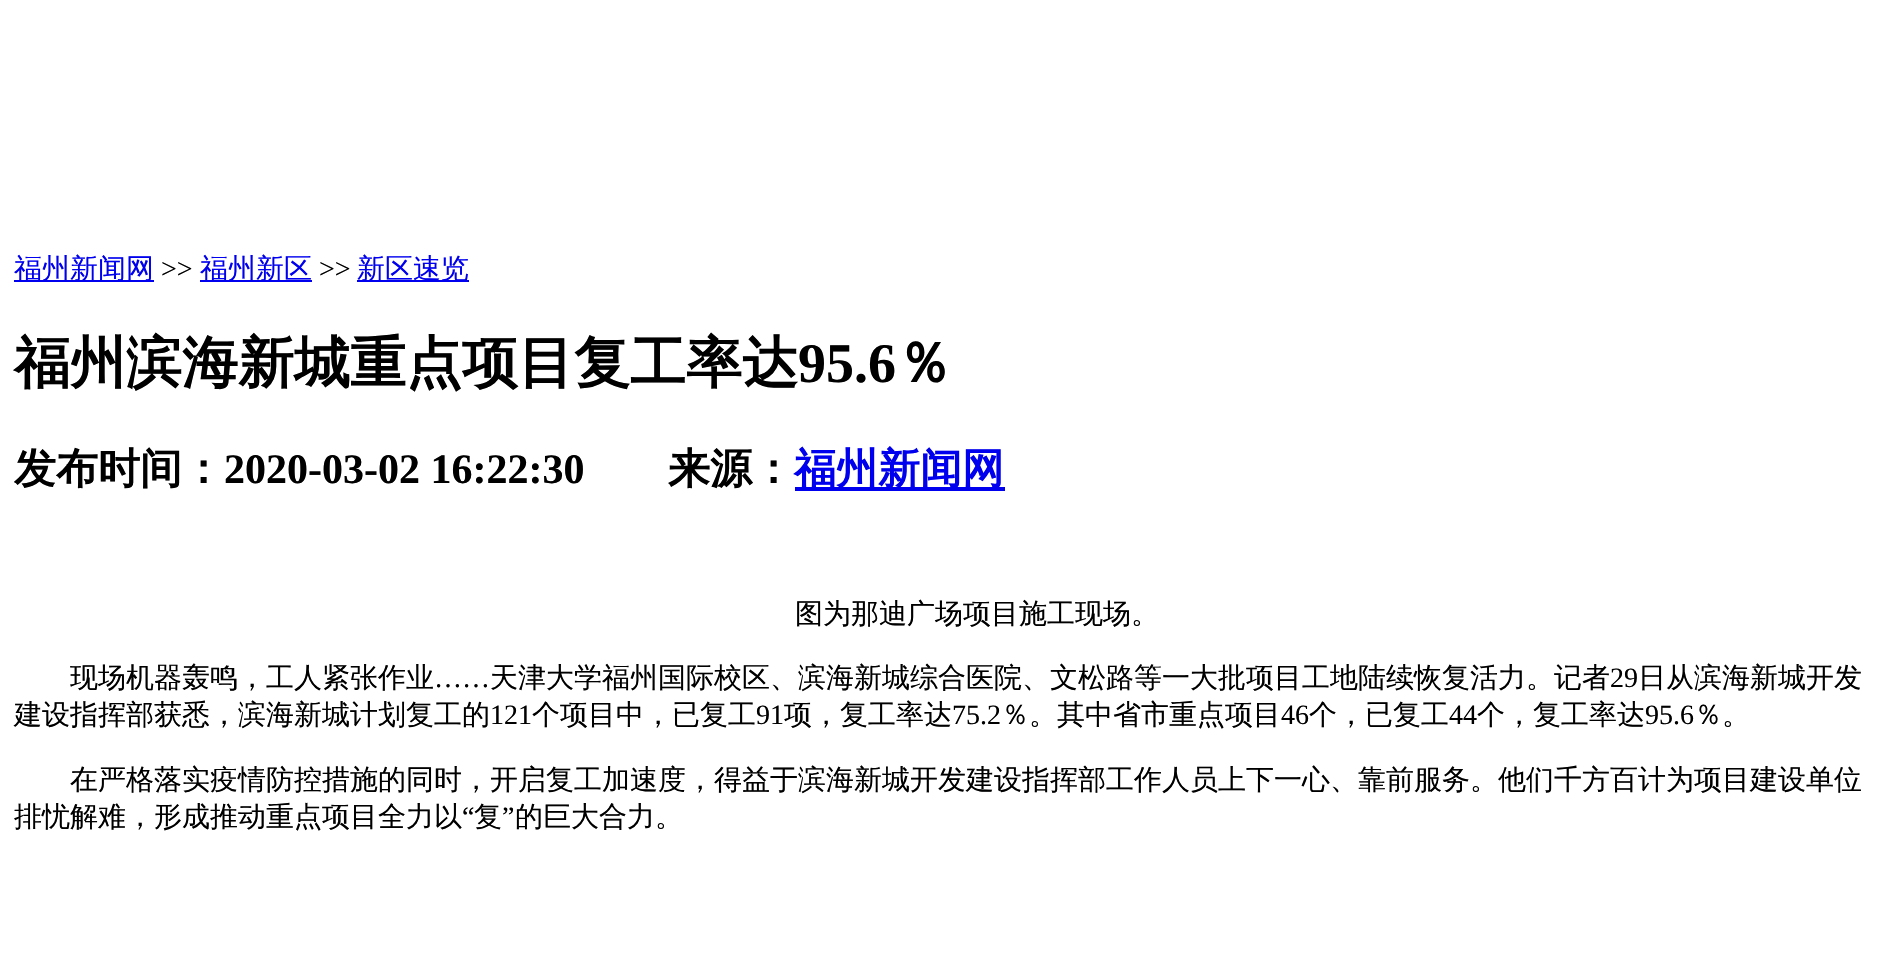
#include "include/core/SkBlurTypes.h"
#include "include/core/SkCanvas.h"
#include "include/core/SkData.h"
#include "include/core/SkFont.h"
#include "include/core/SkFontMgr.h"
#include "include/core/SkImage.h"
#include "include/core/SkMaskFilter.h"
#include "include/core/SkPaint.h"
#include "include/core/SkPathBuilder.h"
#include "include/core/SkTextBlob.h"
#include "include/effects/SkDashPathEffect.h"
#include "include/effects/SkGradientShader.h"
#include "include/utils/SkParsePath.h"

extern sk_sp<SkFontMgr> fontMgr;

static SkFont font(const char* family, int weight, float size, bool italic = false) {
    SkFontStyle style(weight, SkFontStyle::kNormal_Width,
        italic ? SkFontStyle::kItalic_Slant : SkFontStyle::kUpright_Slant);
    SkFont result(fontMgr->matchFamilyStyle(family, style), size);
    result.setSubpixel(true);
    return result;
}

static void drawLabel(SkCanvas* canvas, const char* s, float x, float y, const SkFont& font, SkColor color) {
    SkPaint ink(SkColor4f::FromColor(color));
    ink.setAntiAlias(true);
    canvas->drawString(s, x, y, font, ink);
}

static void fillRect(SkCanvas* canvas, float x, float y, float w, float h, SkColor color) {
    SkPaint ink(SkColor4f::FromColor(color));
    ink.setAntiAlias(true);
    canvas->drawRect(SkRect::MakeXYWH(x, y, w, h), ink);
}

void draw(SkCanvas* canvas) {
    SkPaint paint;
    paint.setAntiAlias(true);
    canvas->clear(0xFFFFFFFF);
    fillRect(canvas, 14, 280, 140, 2, 0xFF0000EE);
    SkFont font1 = font("WenQuanYi Zen Hei", 500, 28);
    drawLabel(canvas, "福州新闻网", 14, 278, font1, 0xFF0000EE);
    SkFont font2 = font("Liberation Serif", 400, 28);
    drawLabel(canvas, ">>", 161, 278, font2, 0xFF000000);
    fillRect(canvas, 200, 280, 112, 2, 0xFF0000EE);
    drawLabel(canvas, "福州新区", 200, 278, font1, 0xFF0000EE);
    drawLabel(canvas, ">>", 319, 278, font2, 0xFF000000);
    fillRect(canvas, 357, 280, 112, 2, 0xFF0000EE);
    drawLabel(canvas, "新区速览", 357, 278, font1, 0xFF0000EE);
    SkFont font3 = font("WenQuanYi Zen Hei", 700, 56);
    drawLabel(canvas, "福州滨海新城重点项目复工率达", 14, 382, font3, 0xFF000000);
    SkFont font4 = font("Liberation Serif", 700, 56);
    drawLabel(canvas, "95.6", 798, 382, font4, 0xFF000000);
    drawLabel(canvas, "％", 896, 382, font3, 0xFF000000);
    SkFont font5 = font("WenQuanYi Zen Hei", 700, 42);
    drawLabel(canvas, "发布时间：", 14, 483, font5, 0xFF000000);
    SkFont font6 = font("Liberation Serif", 700, 42);
    drawLabel(canvas, "2020-03-02 16:22:30", 224, 483, font6, 0xFF000000);
    drawLabel(canvas, "来源：", 668, 483, font5, 0xFF000000);
    fillRect(canvas, 795, 487, 210, 4, 0xFF0000EE);
    drawLabel(canvas, "福州新闻网", 794, 483, font5, 0xFF0000EE);
    drawLabel(canvas, "图为那迪广场项目施工现场。", 795, 623, font1, 0xFF000000);
    drawLabel(canvas, "现场机器轰鸣，工人紧张作业", 70, 687, font1, 0xFF000000);
    drawLabel(canvas, "……", 434, 687, font2, 0xFF000000);
    drawLabel(canvas, "天津大学福州国际校区、滨海新城综合医院、文松路等一大批项目工地陆续恢复活力。记者", 490, 687, font1, 0xFF000000);
    drawLabel(canvas, "29", 1610, 687, font2, 0xFF000000);
    drawLabel(canvas, "日从滨海新城开发", 1638, 687, font1, 0xFF000000);
    drawLabel(canvas, "建设指挥部获悉，滨海新城计划复工的", 14, 724, font1, 0xFF000000);
    drawLabel(canvas, "121", 490, 724, font2, 0xFF000000);
    drawLabel(canvas, "个项目中，已复工", 532, 724, font1, 0xFF000000);
    drawLabel(canvas, "91", 756, 724, font2, 0xFF000000);
    drawLabel(canvas, "项，复工率达", 784, 724, font1, 0xFF000000);
    drawLabel(canvas, "75.2", 952, 724, font2, 0xFF000000);
    drawLabel(canvas, "％。其中省市重点项目", 1001, 724, font1, 0xFF000000);
    drawLabel(canvas, "46", 1281, 724, font2, 0xFF000000);
    drawLabel(canvas, "个，已复工", 1309, 724, font1, 0xFF000000);
    drawLabel(canvas, "44", 1449, 724, font2, 0xFF000000);
    drawLabel(canvas, "个，复工率达", 1477, 724, font1, 0xFF000000);
    drawLabel(canvas, "95.6", 1645, 724, font2, 0xFF000000);
    drawLabel(canvas, "％。", 1694, 724, font1, 0xFF000000);
    drawLabel(canvas, "在严格落实疫情防控措施的同时，开启复工加速度，得益于滨海新城开发建设指挥部工作人员上下一心、靠前服务。他们千方百计为项目建设单位", 70, 789, font1, 0xFF000000);
    drawLabel(canvas, "排忧解难，形成推动重点项目全力以", 14, 826, font1, 0xFF000000);
    drawLabel(canvas, "“", 462, 826, font2, 0xFF000000);
    drawLabel(canvas, "复", 474, 826, font1, 0xFF000000);
    drawLabel(canvas, "”", 502, 826, font2, 0xFF000000);
    drawLabel(canvas, "的巨大合力。", 515, 826, font1, 0xFF000000);
}
